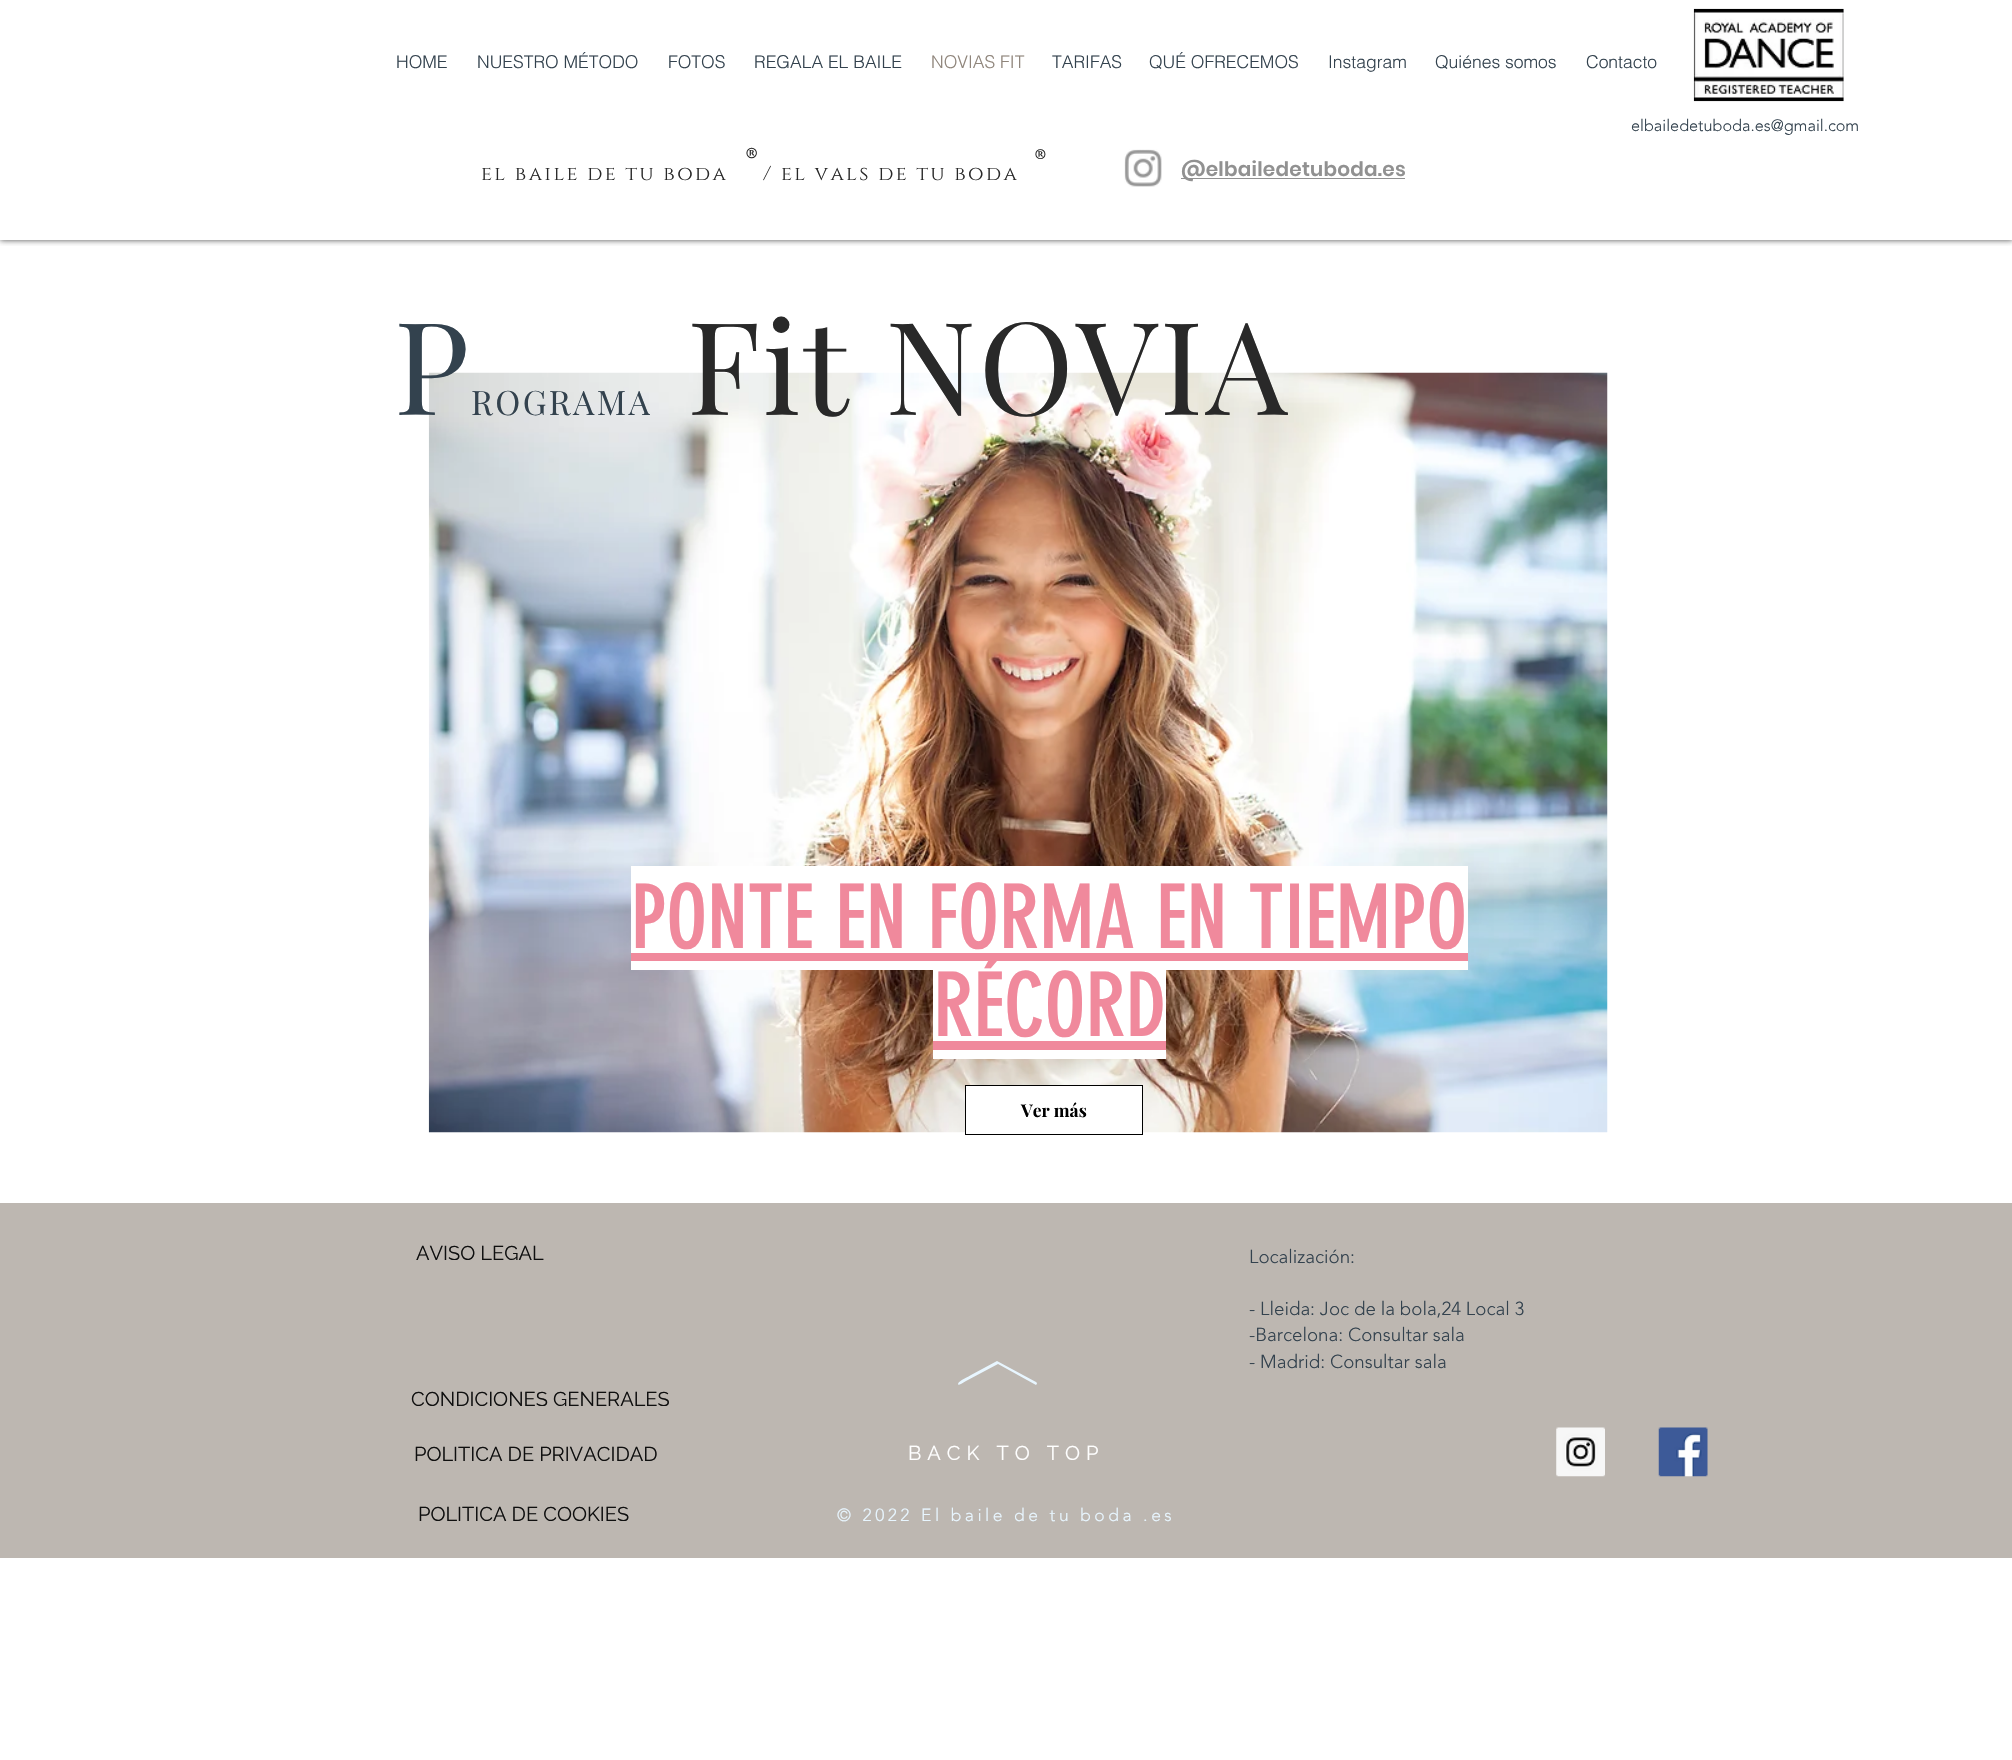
#include "include/core/SkBlurTypes.h"
#include "include/core/SkCanvas.h"
#include "include/core/SkData.h"
#include "include/core/SkFont.h"
#include "include/core/SkFontMgr.h"
#include "include/core/SkImage.h"
#include "include/core/SkMaskFilter.h"
#include "include/core/SkPaint.h"
#include "include/core/SkPathBuilder.h"
#include "include/core/SkTextBlob.h"
#include "include/effects/SkDashPathEffect.h"
#include "include/effects/SkGradientShader.h"
#include "include/utils/SkParsePath.h"

extern sk_sp<SkFontMgr> fontMgr;

static SkFont font(const char* family, int weight, float size, bool italic = false) {
    SkFontStyle style(weight, SkFontStyle::kNormal_Width,
        italic ? SkFontStyle::kItalic_Slant : SkFontStyle::kUpright_Slant);
    SkFont result(fontMgr->matchFamilyStyle(family, style), size);
    result.setSubpixel(true);
    return result;
}

static void drawLabel(SkCanvas* canvas, const char* s, float x, float y, const SkFont& font, SkColor color) {
    SkPaint ink(SkColor4f::FromColor(color));
    ink.setAntiAlias(true);
    canvas->drawString(s, x, y, font, ink);
}

static void drawTracked(SkCanvas* canvas, const char* s, float x, float y, const SkFont& font, const SkPaint& ink, float letter, float word) {
    std::vector<SkGlyphID> glyphs(font.countText(s, strlen(s), SkTextEncoding::kUTF8));
    std::vector<float> xs(glyphs.size());
    font.textToGlyphs(s, strlen(s), SkTextEncoding::kUTF8, glyphs);
    font.getXPos(glyphs, xs, x);
    float extra = 0;
    for (size_t i = 0; i < glyphs.size(); i++) {
        xs[i] += extra;
        extra += letter + word * (glyphs[i] == font.unicharToGlyph(' '));
    }
    canvas->drawTextBlob(SkTextBlob::MakeFromPosHGlyphs(glyphs, xs, y, font), 0, 0, ink);
}

static void fillRect(SkCanvas* canvas, float x, float y, float w, float h, SkColor color) {
    SkPaint ink(SkColor4f::FromColor(color));
    ink.setAntiAlias(true);
    canvas->drawRect(SkRect::MakeXYWH(x, y, w, h), ink);
}

static void drawPhoto(SkCanvas* canvas, const char* path, float x, float y, float w, float h) {
    auto image = SkImages::DeferredFromEncodedData(SkData::MakeFromFileName(path));
    canvas->drawImageRect(image, SkRect::MakeXYWH(x, y, w, h), SkSamplingOptions());
}

static SkPath parsePath(const char* data, bool evenOdd = false) {
    SkPath result = *SkParsePath::FromSVGString(data);
    if (evenOdd) result.setFillType(SkPathFillType::kEvenOdd);
    return result;
}

void draw(SkCanvas* canvas) {
    SkPaint paint;
    paint.setAntiAlias(true);
    canvas->clear(0xFFFFFFFF);
    canvas->save();
    canvas->clipRect(SkRect::MakeXYWH(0, 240, 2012, 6));
    paint.setColor(0xB3000000);
    paint.setMaskFilter(SkMaskFilter::MakeBlur(kNormal_SkBlurStyle, 3));
    canvas->drawRect(SkRect::MakeXYWH(0, 0, 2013, 240), paint);
    paint.setMaskFilter(nullptr);
    canvas->restore();
    SkFont font1 = font("helvetica", 300, 17.5f);
    drawLabel(canvas, "HOME", 396, 68, font1, 0xFF33424E);
    drawLabel(canvas, "NUESTRO MÉTODO", 477, 68, font1, 0xFF33424E);
    drawLabel(canvas, "FOTOS", 668, 68, font1, 0xFF33424E);
    drawLabel(canvas, "REGALA EL BAILE", 754, 68, font1, 0xFF33424E);
    drawLabel(canvas, "NOVIAS FIT", 931, 68, font1, 0xFF8F857B);
    drawLabel(canvas, "TARIFAS", 1052, 68, font1, 0xFF33424E);
    drawLabel(canvas, "QUÉ OFRECEMOS", 1149, 68, font1, 0xFF33424E);
    drawLabel(canvas, "Instagram", 1328, 68, font1, 0xFF33424E);
    drawLabel(canvas, "Quiénes somos", 1435, 68, font1, 0xFF33424E);
    drawLabel(canvas, "Contacto", 1586, 68, font1, 0xFF33424E);
    drawPhoto(canvas, "assets/img1.png", 1693, 8, 151, 94);
    SkFont font2 = font("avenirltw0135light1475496", 300, 16.25f);
    drawLabel(canvas, "elbailedetuboda.es@gmail.com", 1631, 131, font2, 0xFF33424E);
    SkFont font3 = font("Cinzel", 400, 46);
    paint.setColor(0xFF292929);
    drawTracked(canvas, "®", 746, 180, font3, paint, 6, 0);
    SkFont font4 = font("Cinzel", 400, 44);
    drawTracked(canvas, "®", 1035, 180, font4, paint, 5, 0);
    SkFont font5 = font("Cinzel", 400, 20);
    drawTracked(canvas, "el baile de tu boda", 481, 180, font5, paint, 2.4f, 0);
    drawTracked(canvas, "/ el vals de tu boda", 763, 180, font5, paint, 2.4f, 0);
    drawPhoto(canvas, "assets/img2.png", 1124, 149, 38, 38);
    fillRect(canvas, 1181, 178, 224, 1, 0xFF919191);
    SkFont font6 = font("Poppins", 600, 20);
    paint.setColor(0xFF919191);
    drawTracked(canvas, "@elbailedetuboda.es", 1181, 176, font6, paint, 0.25f, 0);
    drawPhoto(canvas, "assets/img3.png", 428, 372, 1180, 761);
    SkFont font7 = font("Playfair Display", 400, 128.75f);
    paint.setColor(0xFF33424E);
    drawTracked(canvas, "P", 394, 415, font7, paint, 2.4f, 0);
    SkFont font8 = font("Playfair Display", 400, 33.75f);
    drawTracked(canvas, "ROGRAMA", 471, 415, font8, paint, 2.4f, 0);
    paint.setColor(0xFF292929);
    drawTracked(canvas, "Fit NOVIA", 687, 415, font7, paint, 2.4f, 0);
    fillRect(canvas, 631, 866, 837, 104, 0xFFFFFFFF);
    SkFont font9 = font("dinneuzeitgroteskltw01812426", 400, 87.5f);
    drawLabel(canvas, "PONTE EN FORMA EN TIEMPO", 631, 948, font9, 0xFFF0899C);
    fillRect(canvas, 933, 970, 233, 89, 0xFFFFFFFF);
    fillRect(canvas, 631, 953, 837, 8, 0xFFF0899C);
    drawLabel(canvas, "RÉCORD", 933, 1036, font9, 0xFFF0899C);
    fillRect(canvas, 933, 1041, 233, 9, 0xFFF0899C);
    fillRect(canvas, 966, 1086, 176, 47, 0xFFFFFFFF);
    paint.setStroke(true);
    paint.setStrokeWidth(1);
    paint.setColor(0xFF000000);
    canvas->drawRect(SkRect::MakeXYWH(965.5f, 1085.5f, 177, 49), paint);
    SkFont font10 = font("Playfair Display", 700, 17.5f);
    drawLabel(canvas, "Ver más", 1021, 1117, font10, 0xFF000000);
    fillRect(canvas, 0, 1203, 2012, 355, 0xFFBDB7B1);
    SkFont font11 = font("Raleway", 400, 20);
    drawLabel(canvas, "AVISO LEGAL", 416, 1260, font11, 0xFF0F0F0F);
    SkFont font12 = font("avenirltw0135light1475496", 300, 18.75f);
    drawLabel(canvas, "Localización:", 1249, 1263, font12, 0xFF33424E);
    drawLabel(canvas, "- Lleida: Joc de la bola,24 Local 3", 1249, 1315, font12, 0xFF33424E);
    drawLabel(canvas, "-Barcelona: Consultar sala", 1249, 1341, font12, 0xFF33424E);
    drawLabel(canvas, "- Madrid: Consultar sala", 1249, 1368, font12, 0xFF33424E);
    paint.setStroke(false);
    paint.setColor(0xFFE8F6FF);
    canvas->drawPath(parsePath("M958 1384C958 1381 970 1376 971 1375L997 1361L1036 1382L1037 1383C1037 1384 1036 1385 1036 1385L998 1364L966 1381C961 1384 958 1386 958 1384Z"), paint);
    drawLabel(canvas, "CONDICIONES GENERALES", 411, 1406, font11, 0xFF0F0F0F);
    drawLabel(canvas, "POLITICA DE PRIVACIDAD", 414, 1461, font11, 0xFF0F0F0F);
    paint.setColor(0xFFFFFFFF);
    drawTracked(canvas, "BACK TO TOP", 908, 1460, font11, paint, 6, 0);
    drawPhoto(canvas, "assets/img4.png", 1556, 1427, 49, 50);
    drawPhoto(canvas, "assets/img5.png", 1658, 1427, 50, 50);
    drawLabel(canvas, "POLITICA DE COOKIES", 418, 1521, font11, 0xFF0F0F0F);
    SkFont font13 = font("avenirltw0135light1475496", 300, 17.5f);
    paint.setColor(0xFFE8F6FF);
    drawTracked(canvas, "© 2022 El baile de tu boda .es", 837, 1521, font13, paint, 3.5f, 0);
}
